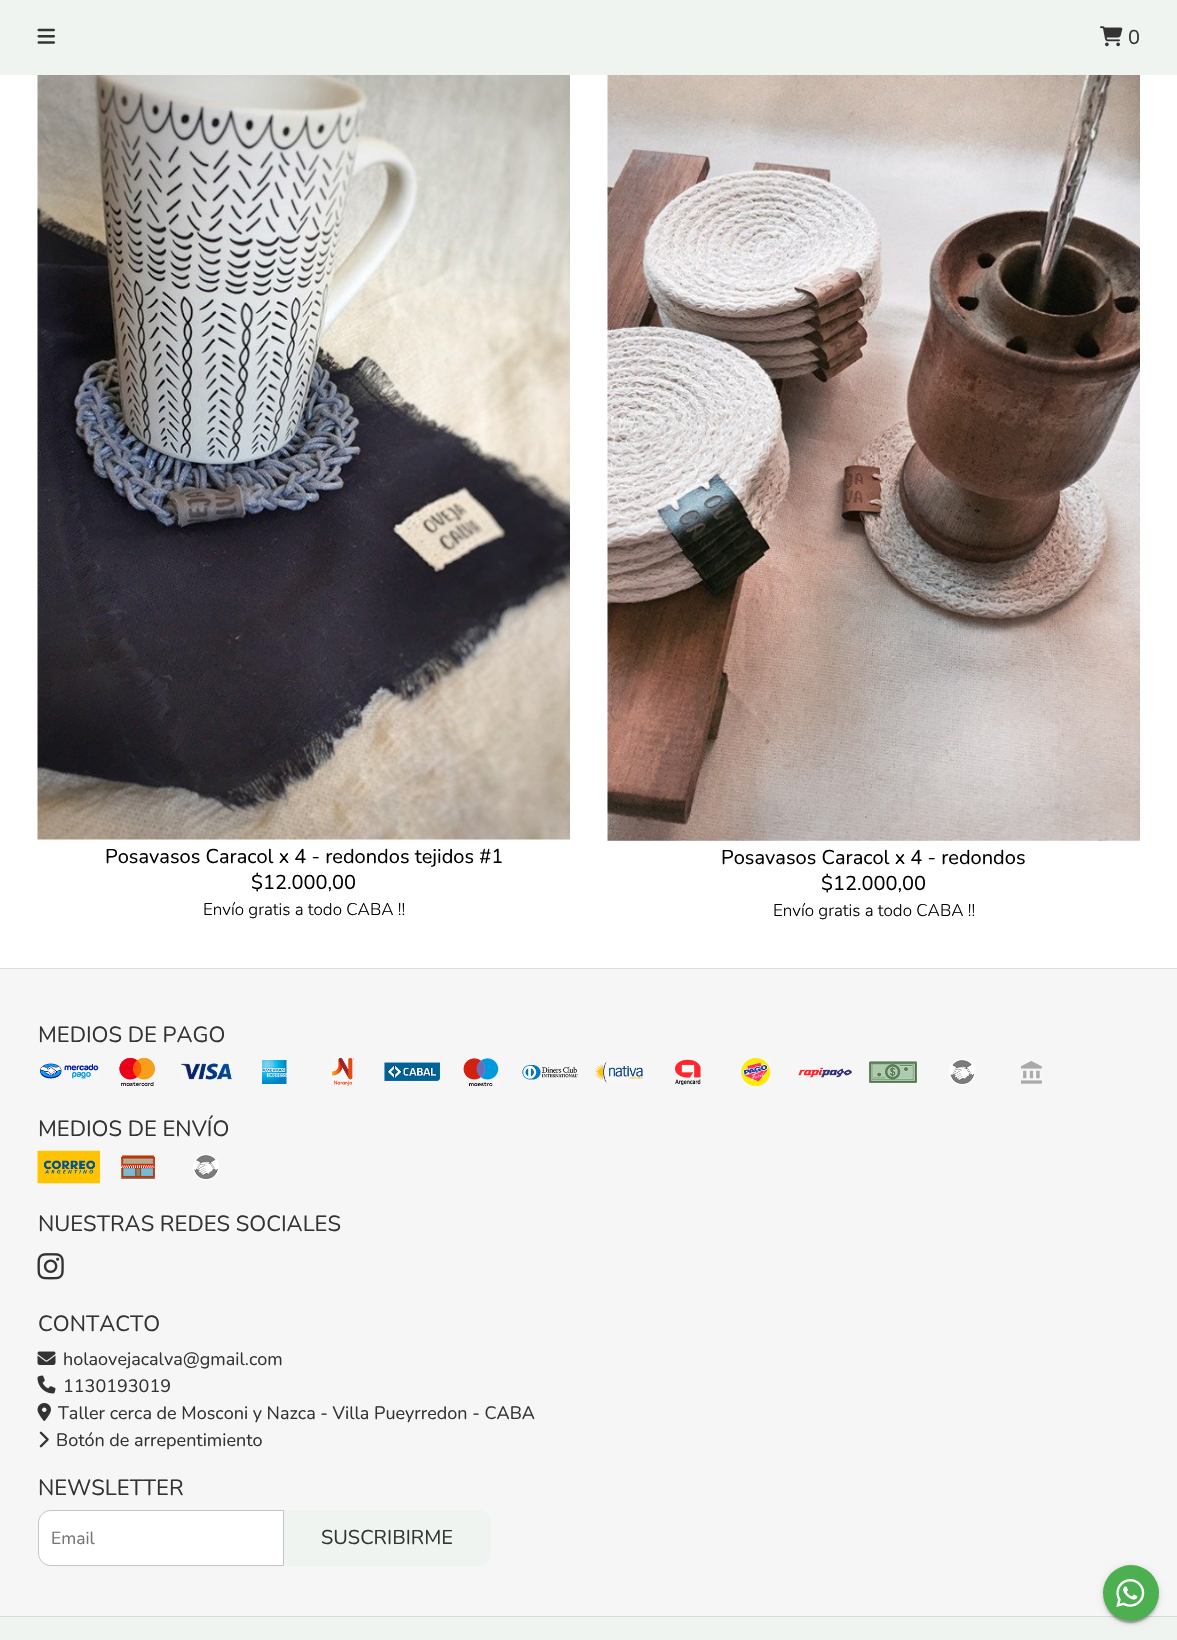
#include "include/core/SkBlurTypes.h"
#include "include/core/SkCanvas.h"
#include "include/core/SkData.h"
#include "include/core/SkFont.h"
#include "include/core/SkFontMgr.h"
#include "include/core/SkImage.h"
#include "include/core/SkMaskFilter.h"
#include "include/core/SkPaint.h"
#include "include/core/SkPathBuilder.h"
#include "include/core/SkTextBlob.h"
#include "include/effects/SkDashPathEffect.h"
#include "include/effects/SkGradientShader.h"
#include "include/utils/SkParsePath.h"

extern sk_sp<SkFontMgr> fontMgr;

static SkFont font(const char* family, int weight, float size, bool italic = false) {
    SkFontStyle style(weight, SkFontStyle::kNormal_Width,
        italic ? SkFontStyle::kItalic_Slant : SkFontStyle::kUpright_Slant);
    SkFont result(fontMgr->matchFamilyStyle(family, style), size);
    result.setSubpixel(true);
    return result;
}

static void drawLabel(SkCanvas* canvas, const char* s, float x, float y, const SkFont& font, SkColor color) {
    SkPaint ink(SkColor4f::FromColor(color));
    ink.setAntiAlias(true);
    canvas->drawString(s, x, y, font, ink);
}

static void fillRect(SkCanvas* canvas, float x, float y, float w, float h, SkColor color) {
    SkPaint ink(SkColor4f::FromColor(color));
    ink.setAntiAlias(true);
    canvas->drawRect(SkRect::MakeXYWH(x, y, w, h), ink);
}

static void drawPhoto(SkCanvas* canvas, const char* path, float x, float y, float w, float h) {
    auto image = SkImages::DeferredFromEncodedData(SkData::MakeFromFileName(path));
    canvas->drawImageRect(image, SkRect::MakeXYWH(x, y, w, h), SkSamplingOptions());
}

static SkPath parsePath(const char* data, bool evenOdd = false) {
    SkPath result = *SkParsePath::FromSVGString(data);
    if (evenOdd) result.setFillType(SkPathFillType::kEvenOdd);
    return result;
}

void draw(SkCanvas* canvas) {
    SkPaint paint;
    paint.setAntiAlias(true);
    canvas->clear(0xFFFFFFFF);
    fillRect(canvas, 0, 0, 1177, 75, 0xFFF0F4F1);
    drawPhoto(canvas, "assets/img1.png", 37, 28, 18, 16);
    drawPhoto(canvas, "assets/img2.png", 1100, 26, 23, 21);
    SkFont font1 = font("Nunito", 400, 20);
    drawLabel(canvas, "0", 1128, 44, font1, 0xFF333333);
    drawPhoto(canvas, "assets/img3.png", 37, 75, 533, 765);
    drawLabel(canvas, "Posavasos Caracol x 4 - redondos tejidos #1", 105, 863, font1, 0xFF000000);
    drawLabel(canvas, "$12.000,00", 251, 889, font1, 0xFF000000);
    SkFont font2 = font("Nunito", 300, 17);
    drawLabel(canvas, "Envío gratis a todo CABA !!", 203, 915, font2, 0xFF000000);
    drawPhoto(canvas, "assets/img4.png", 607, 75, 533, 766);
    drawLabel(canvas, "Posavasos Caracol x 4 - redondos", 721, 864, font1, 0xFF000000);
    drawLabel(canvas, "$12.000,00", 821, 890, font1, 0xFF000000);
    drawLabel(canvas, "Envío gratis a todo CABA !!", 773, 916, font2, 0xFF000000);
    fillRect(canvas, 0, 969, 1177, 647, 0xFFF6F6F6);
    fillRect(canvas, 0, 968, 1177, 1, 0xFFDDDDDD);
    SkFont font3 = font("Nunito", 400, 22);
    drawLabel(canvas, "MEDIOS DE PAGO", 38, 1042, font3, 0xFF333333);
    drawPhoto(canvas, "assets/img5.png", 40, 1063, 59, 16);
    drawPhoto(canvas, "assets/img6.png", 119, 1058, 36, 28);
    drawPhoto(canvas, "assets/img7.png", 181, 1063, 51, 17);
    drawPhoto(canvas, "assets/img8.png", 262, 1060, 25, 24);
    drawPhoto(canvas, "assets/img9.png", 332, 1058, 22, 28);
    drawPhoto(canvas, "assets/img10.png", 384, 1062, 56, 19);
    drawPhoto(canvas, "assets/img11.png", 463, 1058, 36, 28);
    drawPhoto(canvas, "assets/img12.png", 522, 1065, 56, 15);
    drawPhoto(canvas, "assets/img13.png", 595, 1061, 48, 22);
    drawPhoto(canvas, "assets/img14.png", 675, 1059, 26, 26);
    drawPhoto(canvas, "assets/img15.png", 741, 1058, 30, 28);
    drawPhoto(canvas, "assets/img16.png", 798, 1067, 54, 11);
    drawPhoto(canvas, "assets/img17.png", 869, 1061, 48, 22);
    drawPhoto(canvas, "assets/img18.png", 949, 1059, 27, 26);
    drawPhoto(canvas, "assets/img19.png", 1021, 1061, 21, 23);
    drawLabel(canvas, "MEDIOS DE ENVÍO", 38, 1136, font3, 0xFF333333);
    drawPhoto(canvas, "assets/img20.png", 37, 1150, 63, 34);
    drawPhoto(canvas, "assets/img21.png", 120, 1155, 35, 24);
    drawPhoto(canvas, "assets/img22.png", 193, 1154, 26, 26);
    drawLabel(canvas, "NUESTRAS REDES SOCIALES", 38, 1231, font3, 0xFF333333);
    drawPhoto(canvas, "assets/img23.png", 37, 1253, 27, 27);
    drawLabel(canvas, "CONTACTO", 38, 1331, font3, 0xFF333333);
    drawPhoto(canvas, "assets/img24.png", 37, 1351, 19, 14);
    SkFont font4 = font("Nunito", 400, 18);
    drawLabel(canvas, "holaovejacalva@gmail.com", 63, 1365, font4, 0xFF333333);
    drawPhoto(canvas, "assets/img25.png", 37, 1375, 19, 19);
    drawLabel(canvas, "1130193019", 63, 1392, font4, 0xFF333333);
    drawPhoto(canvas, "assets/img26.png", 37, 1403, 14, 18);
    drawLabel(canvas, "Taller cerca de Mosconi y Nazca - Villa Pueyrredon - CABA", 58, 1419, font4, 0xFF333333);
    drawPhoto(canvas, "assets/img27.png", 39, 1431, 10, 17);
    drawLabel(canvas, "Botón de arrepentimiento", 56, 1446, font4, 0xFF333333);
    drawLabel(canvas, "NEWSLETTER", 38, 1495, font3, 0xFF333333);
    paint.setColor(0xFFFFFFFF);
    canvas->drawPath(parsePath("M51 1510.5H283.5V1565.5H51C44 1565.5 38.5 1560 38.5 1553V1523C38.5 1516 44 1510.5 51 1510.5Z"), paint);
    paint.setStroke(true);
    paint.setStrokeWidth(1);
    paint.setColor(0xFFC4C4C4);
    canvas->drawPath(parsePath("M51 1510.5H283.5V1565.5H51C44 1565.5 38.5 1560 38.5 1553V1523C38.5 1516 44 1510.5 51 1510.5Z"), paint);
    SkFont font5 = font("Nunito", 400, 17.5f);
    drawLabel(canvas, "Email", 51, 1544, font5, 0xFF757575);
    paint.setStroke(false);
    paint.setColor(0xFFF0F4F1);
    canvas->drawPath(parsePath("M284 1510H478C485 1510 491 1516 491 1523V1553C491 1560 485 1566 478 1566H284Z"), paint);
    drawLabel(canvas, "SUSCRIBIRME", 321, 1544, font1, 0xFF333333);
    fillRect(canvas, 0, 1617, 1177, 23, 0xFFF0F4F1);
    fillRect(canvas, 0, 1616, 1177, 1, 0xFFD8DCD9);
    paint.setColor(0x33000000);
    paint.setMaskFilter(SkMaskFilter::MakeBlur(kNormal_SkBlurStyle, 0.5f));
    canvas->drawRoundRect(SkRect::MakeXYWH(1105, 1571, 51, 52), 25.5f, 25.5f, paint);
    paint.setMaskFilter(nullptr);
    paint.setColor(0x1F000000);
    paint.setMaskFilter(SkMaskFilter::MakeBlur(kNormal_SkBlurStyle, 3));
    canvas->drawRoundRect(SkRect::MakeXYWH(1103, 1566, 56, 57), 28, 28, paint);
    paint.setMaskFilter(nullptr);
    paint.setColor(0x24000000);
    paint.setMaskFilter(SkMaskFilter::MakeBlur(kNormal_SkBlurStyle, 1));
    canvas->drawRoundRect(SkRect::MakeXYWH(1103, 1568, 56, 56), 28, 28, paint);
    paint.setMaskFilter(nullptr);
    paint.setColor(0xFF4CAF50);
    canvas->drawCircle(1131, 1593, 28, paint);
    drawPhoto(canvas, "assets/img28.png", 1116, 1579, 29, 28);
}
